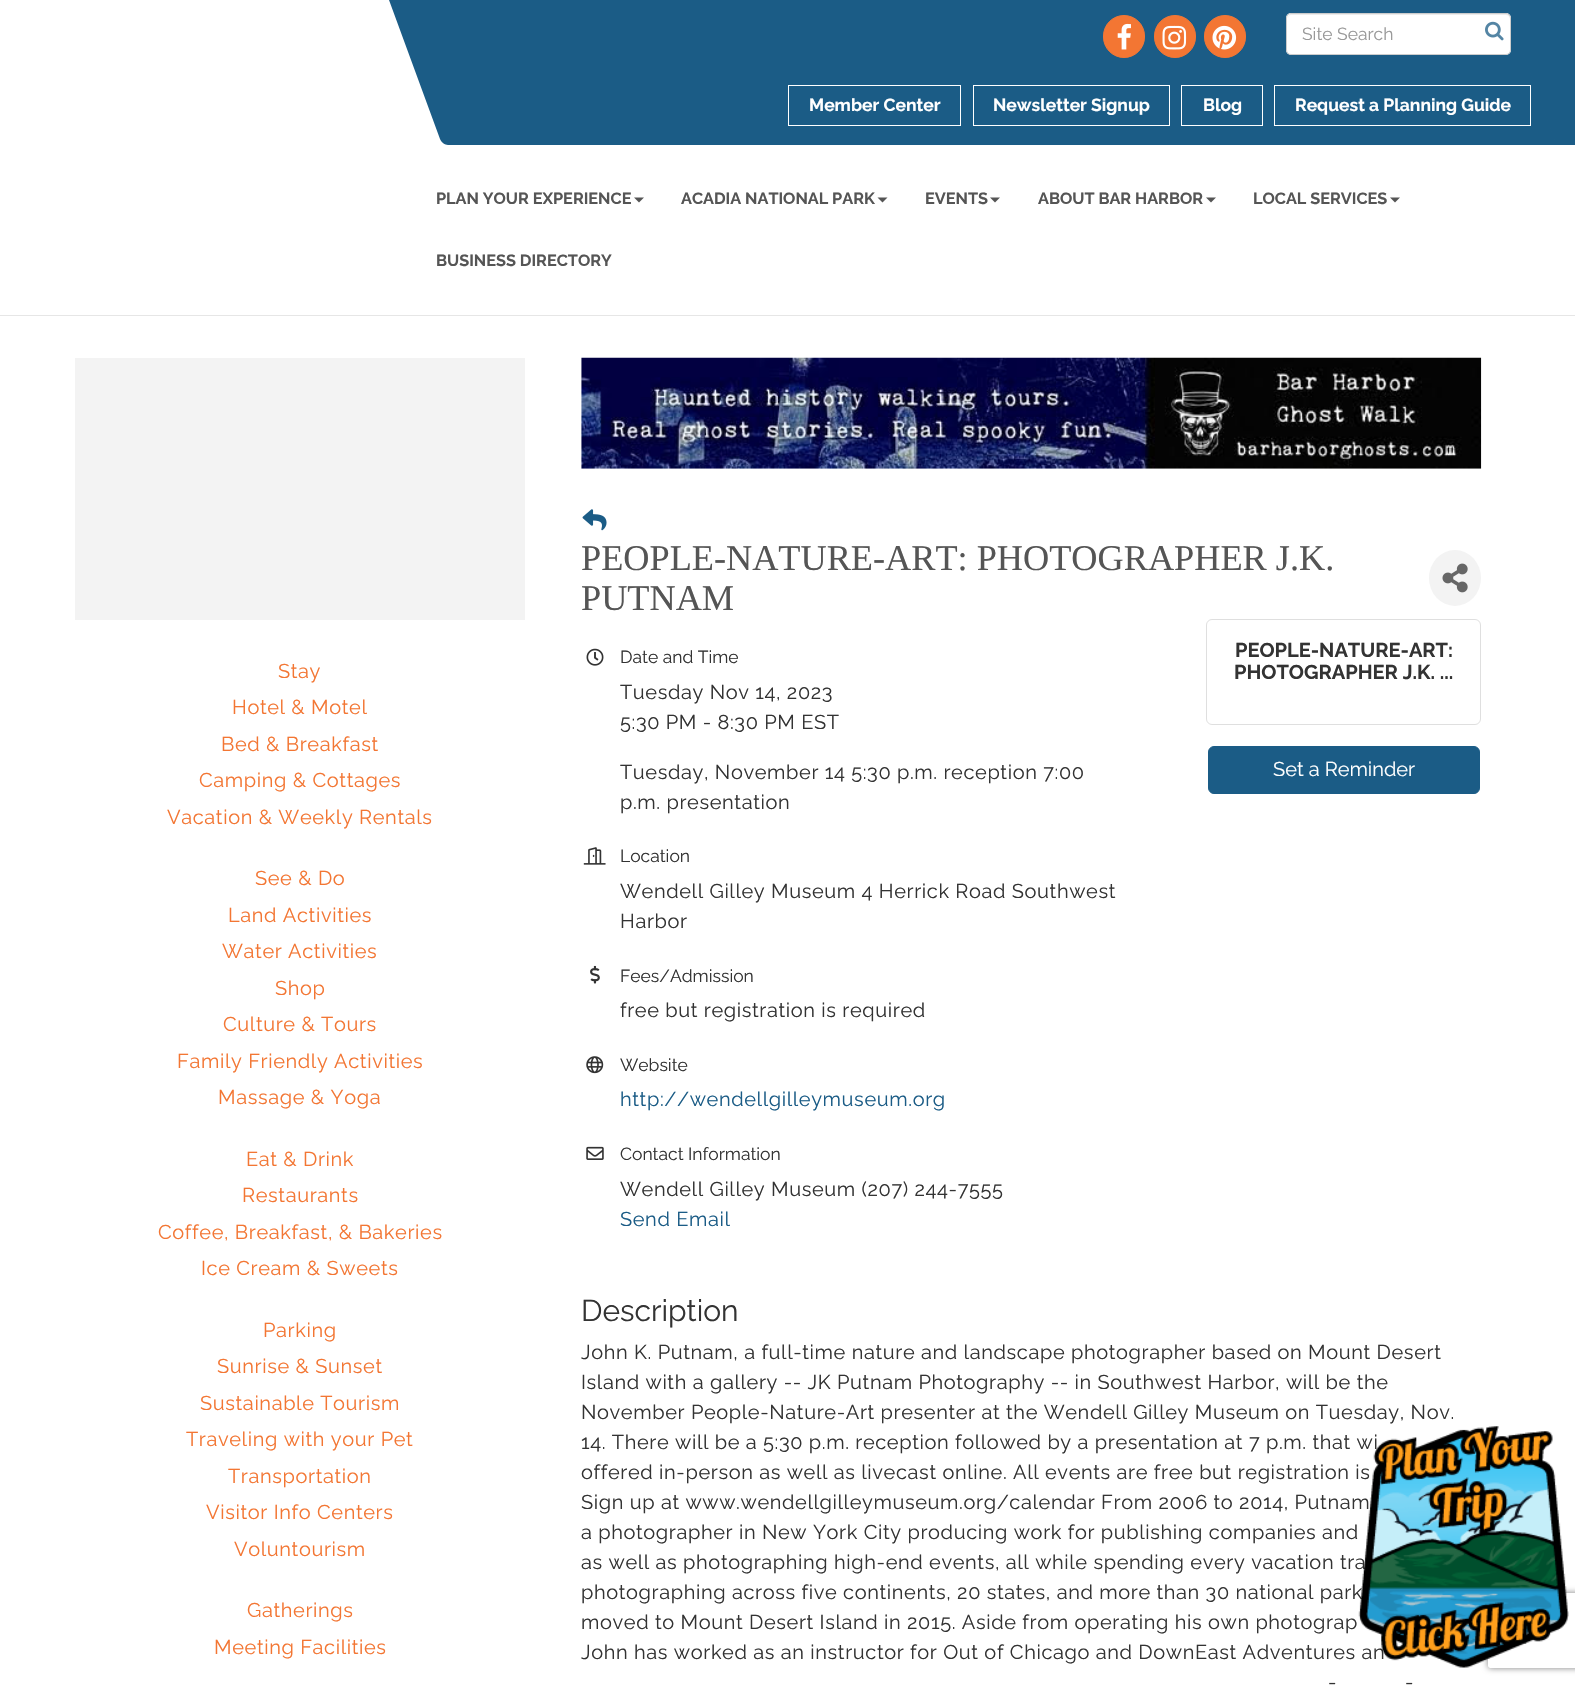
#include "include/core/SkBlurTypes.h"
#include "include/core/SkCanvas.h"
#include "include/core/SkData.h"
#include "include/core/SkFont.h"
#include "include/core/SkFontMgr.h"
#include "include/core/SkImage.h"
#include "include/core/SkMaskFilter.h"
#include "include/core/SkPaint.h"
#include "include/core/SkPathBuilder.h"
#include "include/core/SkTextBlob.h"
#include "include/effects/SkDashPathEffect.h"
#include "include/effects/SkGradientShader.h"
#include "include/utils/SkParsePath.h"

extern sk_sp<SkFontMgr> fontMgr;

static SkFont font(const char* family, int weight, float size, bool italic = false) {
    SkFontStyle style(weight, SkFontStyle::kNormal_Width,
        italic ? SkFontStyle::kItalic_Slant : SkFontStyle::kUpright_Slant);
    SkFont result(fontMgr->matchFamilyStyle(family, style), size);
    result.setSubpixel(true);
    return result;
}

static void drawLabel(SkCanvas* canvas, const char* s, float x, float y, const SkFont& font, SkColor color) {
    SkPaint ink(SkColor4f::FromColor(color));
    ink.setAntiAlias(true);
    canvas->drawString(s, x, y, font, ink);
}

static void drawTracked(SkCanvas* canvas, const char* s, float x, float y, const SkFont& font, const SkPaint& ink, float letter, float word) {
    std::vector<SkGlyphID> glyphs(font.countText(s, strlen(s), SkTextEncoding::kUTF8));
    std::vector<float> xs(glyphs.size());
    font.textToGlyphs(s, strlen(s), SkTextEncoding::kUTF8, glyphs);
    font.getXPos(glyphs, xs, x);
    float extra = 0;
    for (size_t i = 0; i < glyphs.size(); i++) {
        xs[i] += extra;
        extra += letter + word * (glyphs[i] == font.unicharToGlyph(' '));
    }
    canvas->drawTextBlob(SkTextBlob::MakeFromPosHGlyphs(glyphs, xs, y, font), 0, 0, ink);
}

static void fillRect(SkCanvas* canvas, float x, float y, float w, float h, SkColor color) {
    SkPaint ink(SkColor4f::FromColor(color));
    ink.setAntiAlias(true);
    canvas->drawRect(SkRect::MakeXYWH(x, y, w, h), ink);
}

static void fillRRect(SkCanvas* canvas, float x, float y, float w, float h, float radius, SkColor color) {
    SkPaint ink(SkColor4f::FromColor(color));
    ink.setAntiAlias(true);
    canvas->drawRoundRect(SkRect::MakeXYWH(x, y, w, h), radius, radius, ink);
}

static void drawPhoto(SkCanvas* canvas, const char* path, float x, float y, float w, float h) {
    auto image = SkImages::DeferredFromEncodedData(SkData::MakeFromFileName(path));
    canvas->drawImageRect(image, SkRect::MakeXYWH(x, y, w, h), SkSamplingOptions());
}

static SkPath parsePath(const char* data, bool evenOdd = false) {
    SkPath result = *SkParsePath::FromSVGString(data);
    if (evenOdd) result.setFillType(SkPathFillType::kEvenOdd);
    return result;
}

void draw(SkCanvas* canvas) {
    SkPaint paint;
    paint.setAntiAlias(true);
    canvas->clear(0xFFFFFFFF);
    fillRect(canvas, 0, 315, 1575, 1, 0xFFE6E6E6);
    paint.setColor(0xFF1B5C86);
    canvas->drawPath(parsePath("M389 0H1504L1557 145H448C445 145 441 142 440 139Z"), paint);
    paint.setColor(0xFFF37633);
    canvas->drawRoundRect(SkRect::MakeXYWH(1103.5f, 15.5f, 41, 42), 20.5f, 20.5f, paint);
    paint.setStroke(true);
    paint.setStrokeWidth(1);
    canvas->drawRoundRect(SkRect::MakeXYWH(1103.5f, 15.5f, 41, 42), 20.5f, 20.5f, paint);
    drawPhoto(canvas, "assets/img1.png", 1117, 23, 14, 27);
    paint.setStroke(false);
    canvas->drawRoundRect(SkRect::MakeXYWH(1154.5f, 15.5f, 41, 42), 20.5f, 20.5f, paint);
    paint.setStroke(true);
    canvas->drawRoundRect(SkRect::MakeXYWH(1154.5f, 15.5f, 41, 42), 20.5f, 20.5f, paint);
    drawPhoto(canvas, "assets/img2.png", 1162, 25, 25, 25);
    paint.setStroke(false);
    canvas->drawRoundRect(SkRect::MakeXYWH(1204.5f, 15.5f, 41, 42), 20.5f, 20.5f, paint);
    paint.setStroke(true);
    canvas->drawRoundRect(SkRect::MakeXYWH(1204.5f, 15.5f, 41, 42), 20.5f, 20.5f, paint);
    drawPhoto(canvas, "assets/img3.png", 1212, 25, 25, 25);
    paint.setStroke(false);
    paint.setColor(0xFF1B5C86);
    canvas->drawPath(parsePath("M1503 0H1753L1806 145H1556Z"), paint);
    fillRRect(canvas, 1286, 13, 225, 42, 5, 0xFFFFFFFF);
    paint.setColor(0xFFECECEC);
    canvas->drawPath(parsePath("M1291 15H1506C1508 15 1510 17 1510 19C1510 16 1509 14 1506 14H1292C1289 14 1288 16 1288 19C1288 17 1289 15 1291 15Z"), paint);
    paint.setStroke(true);
    paint.setColor(0xFFCCCCCC);
    canvas->drawRoundRect(SkRect::MakeXYWH(1286.5f, 13.5f, 224, 41), 4.5f, 4.5f, paint);
    SkFont font1 = font("Raleway", 400, 17.5f);
    drawLabel(canvas, "Site Search", 1302, 40, font1, 0xFF999999);
    drawPhoto(canvas, "assets/img4.png", 1485, 21, 19, 20);
    paint.setColor(0xFFFFFFFF);
    canvas->drawRect(SkRect::MakeXYWH(788.5f, 85.5f, 172, 40), paint);
    SkFont font2 = font("Raleway", 700, 17.5f);
    drawLabel(canvas, "Member Center", 809, 111, font2, 0xFFFFFFFF);
    canvas->drawRect(SkRect::MakeXYWH(973.5f, 85.5f, 196, 40), paint);
    drawLabel(canvas, "Newsletter Signup", 993, 111, font2, 0xFFFFFFFF);
    canvas->drawRect(SkRect::MakeXYWH(1181.5f, 85.5f, 81, 40), paint);
    drawLabel(canvas, "Blog", 1203, 111, font2, 0xFFFFFFFF);
    canvas->drawRect(SkRect::MakeXYWH(1274.5f, 85.5f, 256, 40), paint);
    drawLabel(canvas, "Request a Planning Guide", 1295, 111, font2, 0xFFFFFFFF);
    SkFont font3 = font("Raleway", 700, 16.25f);
    drawLabel(canvas, "PLAN YOUR EXPERIENCE", 436, 204, font3, 0xFF555555);
    paint.setStroke(false);
    paint.setColor(0xFF555555);
    canvas->drawPath(parsePath("M634 197.5H644L639 202.5Z"), paint);
    drawLabel(canvas, "ACADIA NATIONAL PARK", 681, 204, font3, 0xFF555555);
    canvas->drawPath(parsePath("M877.5 197.5H887.5L882.5 202.5Z"), paint);
    drawLabel(canvas, "EVENTS", 925, 204, font3, 0xFF555555);
    canvas->drawPath(parsePath("M990 197.5H1000L995 202.5Z"), paint);
    drawLabel(canvas, "ABOUT BAR HARBOR", 1038, 204, font3, 0xFF555555);
    canvas->drawPath(parsePath("M1206 197.5H1216L1211 202.5Z"), paint);
    drawLabel(canvas, "LOCAL SERVICES", 1253, 204, font3, 0xFF555555);
    canvas->drawPath(parsePath("M1390 197.5H1400L1395 202.5Z"), paint);
    drawLabel(canvas, "BUSINESS DIRECTORY", 436, 266, font3, 0xFF555555);
    fillRect(canvas, 75, 358, 450, 262, 0xFFF3F3F3);
    SkFont font4 = font("Raleway", 400, 20);
    paint.setColor(0xFFF37633);
    drawTracked(canvas, "Stay", 278, 678, font4, paint, 0.62f, 0);
    drawTracked(canvas, "Hotel & Motel", 232, 714, font4, paint, 0.62f, 0);
    drawTracked(canvas, "Bed & Breakfast", 221, 751, font4, paint, 0.62f, 0);
    drawTracked(canvas, "Camping & Cottages", 199, 787, font4, paint, 0.62f, 0);
    drawTracked(canvas, "Vacation & Weekly Rentals", 167, 824, font4, paint, 0.62f, 0);
    drawTracked(canvas, "See & Do", 255, 885, font4, paint, 0.62f, 0);
    drawTracked(canvas, "Land Activities", 228, 922, font4, paint, 0.62f, 0);
    drawTracked(canvas, "Water Activities", 222, 958, font4, paint, 0.62f, 0);
    drawTracked(canvas, "Shop", 275, 995, font4, paint, 0.62f, 0);
    drawTracked(canvas, "Culture & Tours", 223, 1031, font4, paint, 0.62f, 0);
    drawTracked(canvas, "Family Friendly Activities", 177, 1068, font4, paint, 0.62f, 0);
    drawTracked(canvas, "Massage & Yoga", 218, 1104, font4, paint, 0.62f, 0);
    drawTracked(canvas, "Eat & Drink", 246, 1166, font4, paint, 0.62f, 0);
    drawTracked(canvas, "Restaurants", 242, 1202, font4, paint, 0.62f, 0);
    drawTracked(canvas, "Coffee, Breakfast, & Bakeries", 158, 1239, font4, paint, 0.62f, 0);
    drawTracked(canvas, "Ice Cream & Sweets", 201, 1275, font4, paint, 0.62f, 0);
    drawTracked(canvas, "Parking", 263, 1337, font4, paint, 0.62f, 0);
    drawTracked(canvas, "Sunrise & Sunset", 217, 1373, font4, paint, 0.62f, 0);
    drawTracked(canvas, "Sustainable Tourism", 200, 1410, font4, paint, 0.62f, 0);
    drawTracked(canvas, "Traveling with your Pet", 186, 1446, font4, paint, 0.62f, 0);
    drawTracked(canvas, "Transportation", 228, 1483, font4, paint, 0.62f, 0);
    drawTracked(canvas, "Visitor Info Centers", 206, 1519, font4, paint, 0.62f, 0);
    drawTracked(canvas, "Voluntourism", 234, 1556, font4, paint, 0.62f, 0);
    drawTracked(canvas, "Gatherings", 247, 1617, font4, paint, 0.62f, 0);
    drawTracked(canvas, "Meeting Facilities", 214, 1654, font4, paint, 0.62f, 0);
    drawPhoto(canvas, "assets/img5.png", 581, 357, 901, 112);
    drawPhoto(canvas, "assets/img6.png", 582, 509, 25, 22);
    SkFont font5 = font("Liberation Serif", 400, 36.25f);
    drawLabel(canvas, "PEOPLE-NATURE-ART: PHOTOGRAPHER J.K.", 581, 570, font5, 0xFF555555);
    drawLabel(canvas, "PUTNAM", 581, 610, font5, 0xFF555555);
    paint.setColor(0xFFF3F3F3);
    canvas->drawOval(SkRect::MakeXYWH(1429, 550, 52, 56), paint);
    drawPhoto(canvas, "assets/img7.png", 1442, 563, 26, 30);
    drawPhoto(canvas, "assets/img8.png", 586, 648, 18, 18);
    drawLabel(canvas, "Date and Time", 620, 663, font1, 0xFF333333);
    paint.setColor(0xFF333333);
    drawTracked(canvas, "Tuesday Nov 14, 2023", 620, 699, font4, paint, 0.62f, 0);
    drawTracked(canvas, "5:30 PM - 8:30 PM EST", 620, 729, font4, paint, 0.62f, 0);
    drawTracked(canvas, "Tuesday, November 14 5:30 p.m. reception 7:00", 620, 779, font4, paint, 0.62f, 0);
    drawTracked(canvas, "p.m. presentation", 620, 809, font4, paint, 0.62f, 0);
    drawPhoto(canvas, "assets/img9.png", 583, 847, 23, 18);
    drawLabel(canvas, "Location", 620, 862, font1, 0xFF333333);
    drawTracked(canvas, "Wendell Gilley Museum 4 Herrick Road Southwest", 620, 898, font4, paint, 0.62f, 0);
    drawTracked(canvas, "Harbor", 620, 928, font4, paint, 0.62f, 0);
    drawPhoto(canvas, "assets/img10.png", 590, 965, 10, 19);
    drawLabel(canvas, "Fees/Admission", 620, 982, font1, 0xFF333333);
    drawTracked(canvas, "free but registration is required", 620, 1017, font4, paint, 0.62f, 0);
    drawPhoto(canvas, "assets/img11.png", 586, 1056, 18, 18);
    drawLabel(canvas, "Website", 620, 1071, font1, 0xFF333333);
    paint.setColor(0xFF1B5C86);
    drawTracked(canvas, "http://wendellgilleymuseum.org", 620, 1106, font4, paint, 0.62f, 0);
    drawPhoto(canvas, "assets/img12.png", 586, 1146, 18, 14);
    drawLabel(canvas, "Contact Information", 620, 1160, font1, 0xFF333333);
    paint.setColor(0xFF333333);
    drawTracked(canvas, "Wendell Gilley Museum (207) 244-7555", 620, 1196, font4, paint, 0.62f, 0);
    paint.setColor(0xFF1B5C86);
    drawTracked(canvas, "Send Email", 620, 1226, font4, paint, 0.62f, 0);
    paint.setStroke(true);
    paint.setColor(0xFFDFDFDF);
    canvas->drawRoundRect(SkRect::MakeXYWH(1206.5f, 619.5f, 274, 105), 5.5f, 5.5f, paint);
    SkFont font6 = font("Raleway", 700, 20);
    drawLabel(canvas, "PEOPLE-NATURE-ART:", 1235, 657, font6, 0xFF333333);
    drawLabel(canvas, "PHOTOGRAPHER J.K. ...", 1234, 679, font6, 0xFF333333);
    paint.setStroke(false);
    paint.setColor(0xFF1B5C86);
    canvas->drawRoundRect(SkRect::MakeXYWH(1208.5f, 746.5f, 271, 47), 5.5f, 5.5f, paint);
    paint.setStroke(true);
    canvas->drawRoundRect(SkRect::MakeXYWH(1208.5f, 746.5f, 271, 47), 5.5f, 5.5f, paint);
    drawLabel(canvas, "Set a Reminder", 1273, 776, font4, 0xFFFFFFFF);
    SkFont font7 = font("Raleway", 400, 30);
    drawLabel(canvas, "Description", 581, 1321, font7, 0xFF333333);
    paint.setStroke(false);
    paint.setColor(0xFF333333);
    drawTracked(canvas, "John K. Putnam, a full-time nature and landscape photographer based on Mount Desert", 581, 1359, font4, paint, 0.62f, 0);
    drawTracked(canvas, "Island with a gallery -- JK Putnam Photography -- in Southwest Harbor, will be the", 581, 1389, font4, paint, 0.62f, 0);
    drawTracked(canvas, "November People-Nature-Art presenter at the Wendell Gilley Museum on Tuesday, Nov.", 581, 1419, font4, paint, 0.62f, 0);
    drawTracked(canvas, "14. There will be a 5:30 p.m. reception followed by a presentation at 7 p.m. that wi", 581, 1449, font4, paint, 0.62f, 0);
    drawTracked(canvas, "offered in-person as well as livecast online. All events are free but registration is", 581, 1479, font4, paint, 0.62f, 0);
    drawTracked(canvas, "Sign up at www.wendellgilleymuseum.org/calendar From 2006 to 2014, Putnam", 581, 1509, font4, paint, 0.62f, 0);
    drawTracked(canvas, "a photographer in New York City producing work for publishing companies and", 581, 1539, font4, paint, 0.62f, 0);
    drawTracked(canvas, "as well as photographing high-end events, all while spending every vacation tra", 581, 1569, font4, paint, 0.62f, 0);
    drawTracked(canvas, "photographing across five continents, 20 states, and more than 30 national park", 581, 1599, font4, paint, 0.62f, 0);
    drawTracked(canvas, "moved to Mount Desert Island in 2015. Aside from operating his own photograp", 581, 1629, font4, paint, 0.62f, 0);
    drawTracked(canvas, "John has worked as an instructor for Out of Chicago and DownEast Adventures an", 581, 1659, font4, paint, 0.62f, 0);
    drawTracked(canvas, "-", 1328, 1689, font4, paint, 0.62f, 0);
    drawTracked(canvas, "-", 1405, 1689, font4, paint, 0.62f, 0);
    canvas->save();
    canvas->clipPath(parsePath("M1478 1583H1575V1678H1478ZM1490.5 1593H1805.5C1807 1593 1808 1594 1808 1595.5V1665.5C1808 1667 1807 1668 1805.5 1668H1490.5C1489 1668 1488 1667 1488 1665.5V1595.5C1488 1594 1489 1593 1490.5 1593Z", true), true);
    paint.setColor(0xFF808080);
    paint.setMaskFilter(SkMaskFilter::MakeBlur(kNormal_SkBlurStyle, 3));
    canvas->drawRoundRect(SkRect::MakeXYWH(1488, 1593, 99, 75), 2.5f, 2.5f, paint);
    paint.setMaskFilter(nullptr);
    canvas->restore();
    drawPhoto(canvas, "assets/img13.png", 1358, 1426, 211, 242);
}
